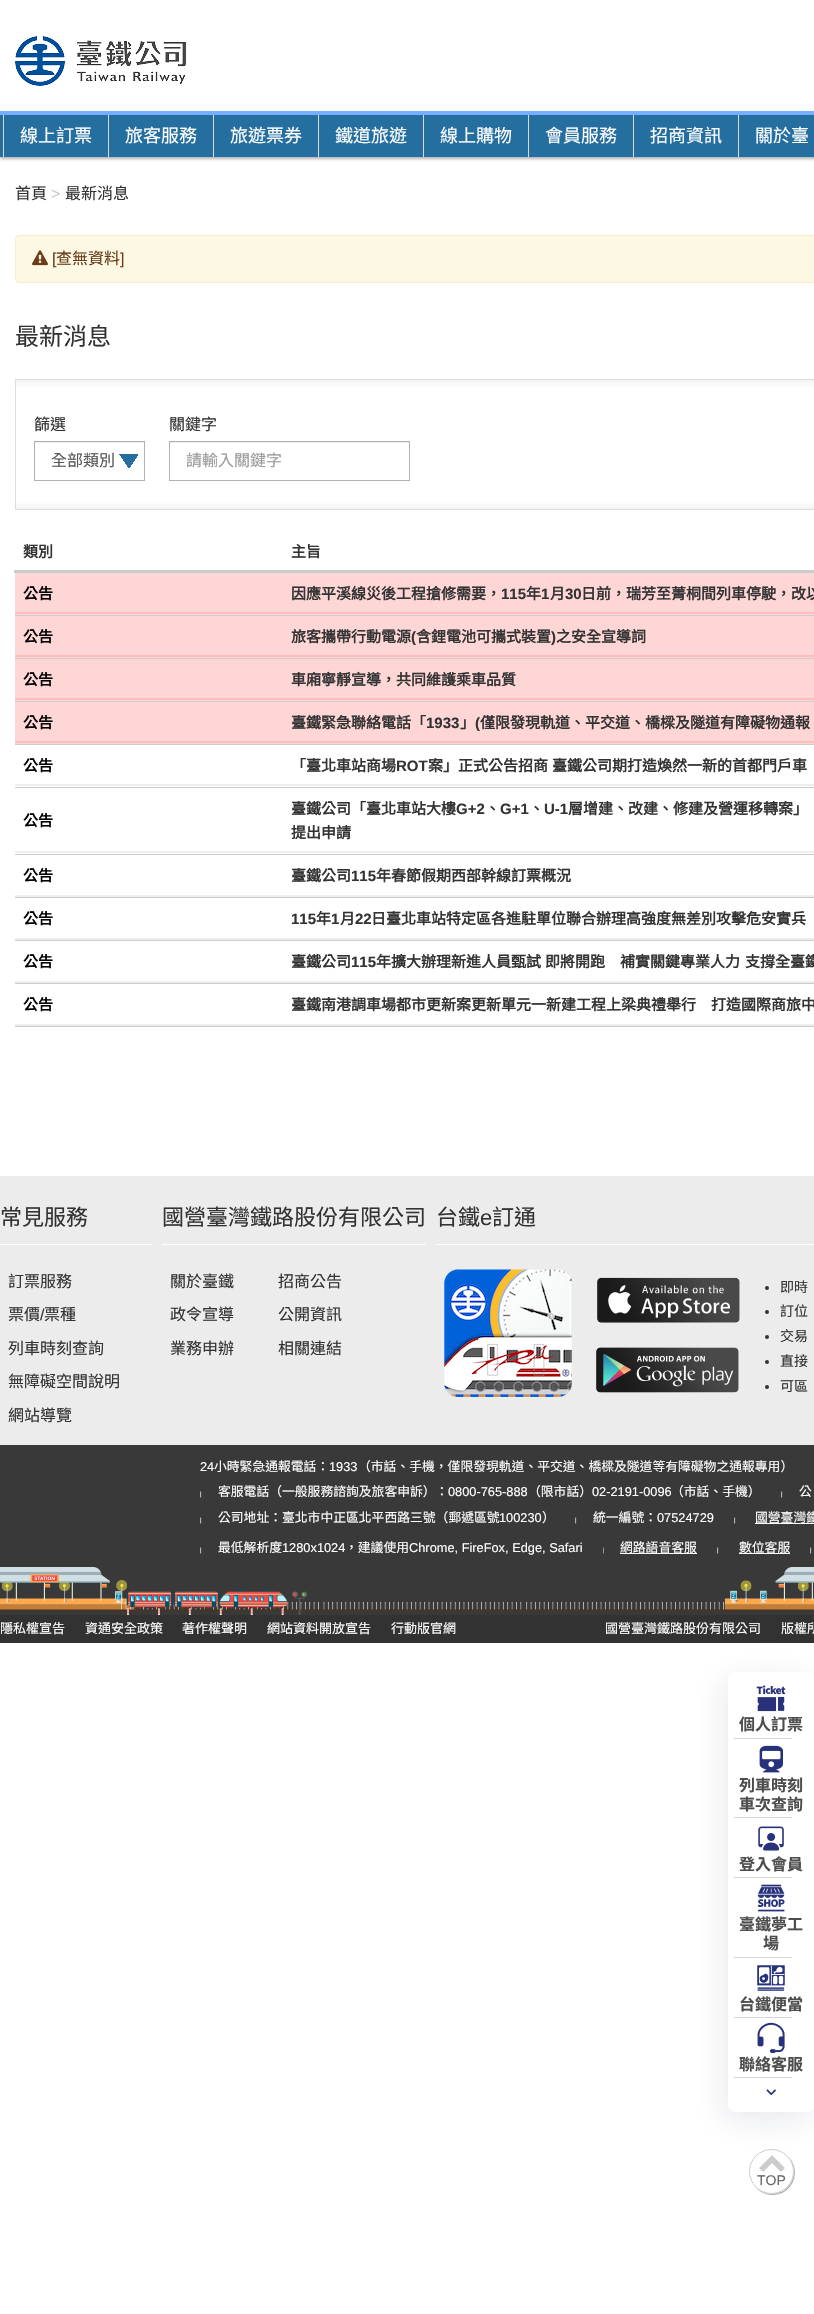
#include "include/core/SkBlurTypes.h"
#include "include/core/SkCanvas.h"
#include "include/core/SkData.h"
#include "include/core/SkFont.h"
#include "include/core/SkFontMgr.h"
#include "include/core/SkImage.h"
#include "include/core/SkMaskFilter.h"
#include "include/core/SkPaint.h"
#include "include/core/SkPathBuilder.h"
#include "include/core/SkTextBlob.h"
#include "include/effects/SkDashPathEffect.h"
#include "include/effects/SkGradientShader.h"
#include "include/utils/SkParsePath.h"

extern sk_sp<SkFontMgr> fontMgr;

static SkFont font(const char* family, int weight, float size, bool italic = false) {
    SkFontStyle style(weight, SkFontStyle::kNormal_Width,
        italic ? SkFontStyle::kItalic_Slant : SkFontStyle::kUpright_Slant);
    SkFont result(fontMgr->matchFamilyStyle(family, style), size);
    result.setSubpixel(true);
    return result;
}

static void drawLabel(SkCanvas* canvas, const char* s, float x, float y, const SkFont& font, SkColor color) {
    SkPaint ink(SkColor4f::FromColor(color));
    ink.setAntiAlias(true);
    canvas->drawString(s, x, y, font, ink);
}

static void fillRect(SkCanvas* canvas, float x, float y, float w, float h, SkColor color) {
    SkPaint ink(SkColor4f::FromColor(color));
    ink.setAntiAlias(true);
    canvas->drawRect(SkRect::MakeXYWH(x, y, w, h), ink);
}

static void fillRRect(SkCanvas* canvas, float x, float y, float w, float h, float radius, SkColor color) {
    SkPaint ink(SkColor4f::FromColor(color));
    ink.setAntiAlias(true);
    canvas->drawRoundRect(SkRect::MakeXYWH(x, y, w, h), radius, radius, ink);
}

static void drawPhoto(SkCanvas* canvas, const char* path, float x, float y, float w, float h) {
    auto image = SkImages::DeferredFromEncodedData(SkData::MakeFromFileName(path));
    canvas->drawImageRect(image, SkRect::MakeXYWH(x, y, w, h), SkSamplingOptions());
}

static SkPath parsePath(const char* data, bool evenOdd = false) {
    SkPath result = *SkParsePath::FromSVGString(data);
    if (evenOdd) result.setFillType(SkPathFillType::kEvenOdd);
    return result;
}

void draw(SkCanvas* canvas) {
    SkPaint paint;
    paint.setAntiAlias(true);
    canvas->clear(0xFFFFFFFF);
    drawPhoto(canvas, "assets/img1.png", 15, 36, 171, 50);
    paint.setColor(0x4D000000);
    paint.setMaskFilter(SkMaskFilter::MakeBlur(kNormal_SkBlurStyle, 1.5f));
    canvas->drawRect(SkRect::MakeXYWH(0, 113, 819, 46), paint);
    paint.setMaskFilter(nullptr);
    fillRect(canvas, 0, 115, 814, 42, 0xFF256FA0);
    fillRect(canvas, 0, 111, 814, 4, 0xFF78AEFF);
    fillRect(canvas, 3, 115, 1, 42, 0xFFD9D9D9);
    SkFont font1 = font("Noto Sans CJK TC", 400, 18);
    drawLabel(canvas, "線上訂票", 20, 142, font1, 0xFFFFFFFF);
    fillRect(canvas, 108, 115, 1, 42, 0xFFD9D9D9);
    drawLabel(canvas, "旅客服務", 125, 142, font1, 0xFFFFFFFF);
    fillRect(canvas, 213, 115, 1, 42, 0xFFD9D9D9);
    drawLabel(canvas, "旅遊票券", 230, 142, font1, 0xFFFFFFFF);
    fillRect(canvas, 318, 115, 1, 42, 0xFFD9D9D9);
    drawLabel(canvas, "鐵道旅遊", 335, 142, font1, 0xFFFFFFFF);
    fillRect(canvas, 423, 115, 1, 42, 0xFFD9D9D9);
    drawLabel(canvas, "線上購物", 440, 142, font1, 0xFFFFFFFF);
    fillRect(canvas, 528, 115, 1, 42, 0xFFD9D9D9);
    drawLabel(canvas, "會員服務", 545, 142, font1, 0xFFFFFFFF);
    fillRect(canvas, 633, 115, 1, 42, 0xFFD9D9D9);
    drawLabel(canvas, "招商資訊", 650, 142, font1, 0xFFFFFFFF);
    fillRect(canvas, 738, 115, 1, 42, 0xFFD9D9D9);
    drawLabel(canvas, "關於臺", 755, 142, font1, 0xFFFFFFFF);
    SkFont font2 = font("Noto Sans CJK TC", 400, 16);
    drawLabel(canvas, "首頁", 15, 199, font2, 0xFF333333);
    SkFont font3 = font("Liberation Sans", 400, 16);
    drawLabel(canvas, ">", 51, 199, font3, 0xFFCCCCCC);
    drawLabel(canvas, "最新消息", 65, 199, font2, 0xFF333333);
    paint.setColor(0xFFFCF8E3);
    canvas->drawRoundRect(SkRect::MakeXYWH(15.5f, 235.5f, 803, 47), 3.5f, 3.5f, paint);
    paint.setStroke(true);
    paint.setStrokeWidth(1);
    paint.setColor(0xFFFAEBCC);
    canvas->drawRoundRect(SkRect::MakeXYWH(15.5f, 235.5f, 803, 47), 3.5f, 3.5f, paint);
    drawPhoto(canvas, "assets/img2.png", 32, 250, 16, 16);
    drawLabel(canvas, "[", 52, 264, font3, 0xFF6A3D19);
    drawLabel(canvas, "查無資料", 56, 264, font2, 0xFF6A3D19);
    drawLabel(canvas, "]", 120, 264, font3, 0xFF6A3D19);
    SkFont font4 = font("Noto Sans CJK TC", 400, 24);
    drawLabel(canvas, "最新消息", 15, 345, font4, 0xFF333333);
    paint.setStroke(false);
    {
        const SkColor colors[] = {0xFFF3F3F3, 0xFFFFFFFF, 0xFFFFFFFF, 0xFFF3F3F3};
        const float stops[] = {0, 0.07f, 0.94f, 1};
        const SkPoint ends[] = {{585, 380}, {585, 509}};
        paint.setShader(SkGradientShader::MakeLinear(ends, colors, stops, 4, SkTileMode::kClamp));
        paint.setAlpha(255);
    }
    canvas->drawRect(SkRect::MakeXYWH(16, 380, 798, 129), paint);
    paint.setStroke(true);
    paint.setShader(nullptr);
    paint.setColor(0xFFDDDDDD);
    canvas->drawRect(SkRect::MakeXYWH(15.5f, 379.5f, 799, 130), paint);
    drawLabel(canvas, "篩選", 34, 430, font2, 0xFF333333);
    paint.setStroke(false);
    {
        const SkColor colors[] = {0xFF256FA0, 0xFFFFFFFF};
        const float stops[] = {0.5f, 0.5f};
        const SkPoint ends[] = {{127, 457}, {141, 466}};
        paint.setShader(SkGradientShader::MakeLinear(ends, colors, stops, 2, SkTileMode::kClamp));
        paint.setAlpha(255);
    }
    canvas->drawRect(SkRect::MakeXYWH(129, 454, 10, 14), paint);
    {
        const SkColor colors[] = {0xFFFFFFFF, 0xFF256FA0};
        const float stops[] = {0.5f, 0.5f};
        const SkPoint ends[] = {{117, 466}, {131, 457}};
        paint.setShader(SkGradientShader::MakeLinear(ends, colors, stops, 2, SkTileMode::kClamp));
        paint.setAlpha(255);
    }
    canvas->drawRect(SkRect::MakeXYWH(119, 454, 10, 14), paint);
    fillRect(canvas, 35, 442, 109, 1, 0xFFECECEC);
    paint.setStroke(true);
    paint.setShader(nullptr);
    paint.setColor(0xFFB1B1B1);
    canvas->drawRect(SkRect::MakeXYWH(34.5f, 441.5f, 110, 39), paint);
    drawLabel(canvas, "全部類別", 51, 466, font2, 0xFF555555);
    drawLabel(canvas, "關鍵字", 169, 430, font2, 0xFF333333);
    fillRect(canvas, 170, 442, 239, 1, 0xFFECECEC);
    canvas->drawRect(SkRect::MakeXYWH(169.5f, 441.5f, 240, 39), paint);
    drawLabel(canvas, "請輸入關鍵字", 186, 466, font2, 0xFF999999);
    SkFont font5 = font("Noto Sans CJK TC", 700, 15);
    drawLabel(canvas, "類別", 23, 557, font5, 0xFF333333);
    fillRect(canvas, 14, 570, 800, 3, 0xFFCCCCCC);
    drawLabel(canvas, "主旨", 291, 557, font5, 0xFF333333);
    fillRect(canvas, 15, 573, 799, 42, 0xFFFFD6D6);
    fillRect(canvas, 15, 612, 799, 2, 0xFFFFBCBC);
    drawLabel(canvas, "公告", 23, 599, font5, 0xFF000000);
    fillRect(canvas, 15, 615, 799, 1, 0xFFCCCCCC);
    drawLabel(canvas, "因應平溪線災後工程搶修需要，", 291, 599, font5, 0xFF333333);
    SkFont font6 = font("Liberation Sans", 700, 15);
    drawLabel(canvas, "115", 501, 599, font6, 0xFF333333);
    drawLabel(canvas, "年", 526, 599, font5, 0xFF333333);
    drawLabel(canvas, "1", 541, 599, font6, 0xFF333333);
    drawLabel(canvas, "月", 550, 599, font5, 0xFF333333);
    drawLabel(canvas, "30", 565, 599, font6, 0xFF333333);
    drawLabel(canvas, "日前，瑞芳至菁桐間列車停駛，改以", 581, 599, font5, 0xFF333333);
    fillRect(canvas, 15, 616, 799, 42, 0xFFFFD6D6);
    fillRect(canvas, 15, 655, 799, 2, 0xFFFFBCBC);
    drawLabel(canvas, "公告", 23, 642, font5, 0xFF000000);
    fillRect(canvas, 15, 658, 799, 1, 0xFFCCCCCC);
    drawLabel(canvas, "旅客攜帶行動電源", 291, 642, font5, 0xFF333333);
    drawLabel(canvas, "(", 411, 642, font6, 0xFF333333);
    drawLabel(canvas, "含鋰電池可攜式裝置", 416, 642, font5, 0xFF333333);
    drawLabel(canvas, ")", 551, 642, font6, 0xFF333333);
    drawLabel(canvas, "之安全宣導詞", 556, 642, font5, 0xFF333333);
    fillRect(canvas, 15, 659, 799, 42, 0xFFFFD6D6);
    fillRect(canvas, 15, 698, 799, 2, 0xFFFFBCBC);
    drawLabel(canvas, "公告", 23, 685, font5, 0xFF000000);
    fillRect(canvas, 15, 701, 799, 1, 0xFFCCCCCC);
    drawLabel(canvas, "車廂寧靜宣導，共同維護乘車品質", 291, 685, font5, 0xFF333333);
    fillRect(canvas, 15, 702, 799, 42, 0xFFFFD6D6);
    fillRect(canvas, 15, 741, 799, 2, 0xFFFFBCBC);
    drawLabel(canvas, "公告", 23, 728, font5, 0xFF000000);
    fillRect(canvas, 15, 744, 799, 1, 0xFFCCCCCC);
    drawLabel(canvas, "臺鐵緊急聯絡電話「", 291, 728, font5, 0xFF333333);
    drawLabel(canvas, "1933", 426, 728, font6, 0xFF333333);
    drawLabel(canvas, "」", 460, 728, font5, 0xFF333333);
    drawLabel(canvas, "(", 475, 728, font6, 0xFF333333);
    drawLabel(canvas, "僅限發現軌道、平交道、橋樑及隧道有障礙物通報", 480, 728, font5, 0xFF333333);
    fillRect(canvas, 15, 784, 799, 2, 0xFFEEEEEE);
    drawLabel(canvas, "公告", 23, 771, font5, 0xFF000000);
    fillRect(canvas, 15, 787, 799, 1, 0xFFCCCCCC);
    drawLabel(canvas, "「臺北車站商場", 291, 771, font5, 0xFF333333);
    drawLabel(canvas, "ROT", 396, 771, font6, 0xFF333333);
    drawLabel(canvas, "案」正式公告招商", 428, 771, font5, 0xFF333333);
    drawLabel(canvas, "臺鐵公司期打造煥然一新的首都門戶車", 552, 771, font5, 0xFF333333);
    fillRect(canvas, 15, 851, 799, 2, 0xFFEEEEEE);
    drawLabel(canvas, "公告", 23, 826, font5, 0xFF000000);
    fillRect(canvas, 15, 854, 799, 1, 0xFFCCCCCC);
    drawLabel(canvas, "臺鐵公司「臺北車站大樓", 291, 814, font5, 0xFF333333);
    drawLabel(canvas, "G+2", 456, 814, font6, 0xFF333333);
    drawLabel(canvas, "、", 485, 814, font5, 0xFF333333);
    drawLabel(canvas, "G+1", 500, 814, font6, 0xFF333333);
    drawLabel(canvas, "、", 529, 814, font5, 0xFF333333);
    drawLabel(canvas, "U-1", 544, 814, font6, 0xFF333333);
    drawLabel(canvas, "層增建、改建、修建及營運移轉案」", 568, 814, font5, 0xFF333333);
    drawLabel(canvas, "提出申請", 291, 838, font5, 0xFF333333);
    fillRect(canvas, 15, 895, 799, 2, 0xFFEEEEEE);
    drawLabel(canvas, "公告", 23, 881, font5, 0xFF000000);
    fillRect(canvas, 15, 897, 799, 1, 0xFFCCCCCC);
    drawLabel(canvas, "臺鐵公司", 291, 881, font5, 0xFF333333);
    drawLabel(canvas, "115", 351, 881, font6, 0xFF333333);
    drawLabel(canvas, "年春節假期西部幹線訂票概況", 376, 881, font5, 0xFF333333);
    fillRect(canvas, 15, 938, 799, 2, 0xFFEEEEEE);
    drawLabel(canvas, "公告", 23, 924, font5, 0xFF000000);
    fillRect(canvas, 15, 940, 799, 1, 0xFFCCCCCC);
    drawLabel(canvas, "115", 291, 924, font6, 0xFF333333);
    drawLabel(canvas, "年", 316, 924, font5, 0xFF333333);
    drawLabel(canvas, "1", 331, 924, font6, 0xFF333333);
    drawLabel(canvas, "月", 340, 924, font5, 0xFF333333);
    drawLabel(canvas, "22", 355, 924, font6, 0xFF333333);
    drawLabel(canvas, "日臺北車站特定區各進駐單位聯合辦理高強度無差別攻擊危安實兵", 371, 924, font5, 0xFF333333);
    fillRect(canvas, 15, 981, 799, 2, 0xFFEEEEEE);
    drawLabel(canvas, "公告", 23, 967, font5, 0xFF000000);
    fillRect(canvas, 15, 983, 799, 1, 0xFFCCCCCC);
    drawLabel(canvas, "臺鐵公司", 291, 967, font5, 0xFF333333);
    drawLabel(canvas, "115", 351, 967, font6, 0xFF333333);
    drawLabel(canvas, "年擴大辦理新進人員甄試", 376, 967, font5, 0xFF333333);
    drawLabel(canvas, "即將開跑　補實關鍵專業人力", 545, 967, font5, 0xFF333333);
    drawLabel(canvas, "支撐全臺鐵", 745, 967, font5, 0xFF333333);
    fillRect(canvas, 15, 1024, 799, 2, 0xFFEEEEEE);
    drawLabel(canvas, "公告", 23, 1010, font5, 0xFF000000);
    fillRect(canvas, 15, 1026, 799, 1, 0xFFCCCCCC);
    drawLabel(canvas, "臺鐵南港調車場都市更新案更新單元一新建工程上梁典禮舉行　打造國際商旅中", 291, 1010, font5, 0xFF333333);
    fillRect(canvas, 0, 1176, 814, 269, 0xFFECECEC);
    fillRect(canvas, 0, 1244, 152, 1, 0xFFFFFFFF);
    SkFont font7 = font("Noto Sans CJK TC", 400, 22);
    drawLabel(canvas, "常見服務", 0, 1225, font7, 0xFF333333);
    drawLabel(canvas, "訂票服務", 8, 1287, font2, 0xFF333333);
    drawLabel(canvas, "票價", 8, 1320, font2, 0xFF333333);
    drawLabel(canvas, "/", 40, 1320, font3, 0xFF333333);
    drawLabel(canvas, "票種", 44, 1320, font2, 0xFF333333);
    drawLabel(canvas, "列車時刻查詢", 8, 1354, font2, 0xFF333333);
    drawLabel(canvas, "無障礙空間說明", 8, 1387, font2, 0xFF333333);
    drawLabel(canvas, "網站導覽", 8, 1421, font2, 0xFF333333);
    fillRect(canvas, 162, 1244, 264, 1, 0xFFFFFFFF);
    drawLabel(canvas, "國營臺灣鐵路股份有限公司", 162, 1225, font7, 0xFF333333);
    drawLabel(canvas, "關於臺鐵", 170, 1287, font2, 0xFF333333);
    drawLabel(canvas, "政令宣導", 170, 1320, font2, 0xFF333333);
    drawLabel(canvas, "業務申辦", 170, 1354, font2, 0xFF333333);
    drawLabel(canvas, "招商公告", 278, 1287, font2, 0xFF333333);
    drawLabel(canvas, "公開資訊", 278, 1320, font2, 0xFF333333);
    drawLabel(canvas, "相關連結", 278, 1354, font2, 0xFF333333);
    fillRect(canvas, 436, 1244, 378, 1, 0xFFFFFFFF);
    drawLabel(canvas, "台鐵", 436, 1225, font7, 0xFF333333);
    SkFont font8 = font("Liberation Sans", 400, 22);
    drawLabel(canvas, "e", 480, 1225, font8, 0xFF333333);
    drawLabel(canvas, "訂通", 492, 1225, font7, 0xFF333333);
    drawPhoto(canvas, "assets/img3.png", 444, 1269, 128, 128);
    drawPhoto(canvas, "assets/img4.png", 597, 1277, 143, 46);
    drawPhoto(canvas, "assets/img5.png", 596, 1347, 143, 46);
    paint.setStroke(false);
    paint.setColor(0xFF333333);
    canvas->drawCircle(767, 1288, 2, paint);
    SkFont font9 = font("Noto Sans CJK TC", 400, 14);
    drawLabel(canvas, "即時", 780, 1292, font9, 0xFF333333);
    canvas->drawCircle(767, 1312, 2, paint);
    drawLabel(canvas, "訂位", 780, 1316, font9, 0xFF333333);
    canvas->drawCircle(767, 1337, 2, paint);
    drawLabel(canvas, "交易", 780, 1341, font9, 0xFF333333);
    canvas->drawCircle(767, 1362, 2, paint);
    drawLabel(canvas, "直接", 780, 1366, font9, 0xFF333333);
    canvas->drawCircle(767, 1387, 2, paint);
    drawLabel(canvas, "可區", 780, 1391, font9, 0xFF333333);
    fillRect(canvas, 0, 1445, 814, 170, 0xFF393939);
    drawPhoto(canvas, "assets/img6.png", 0, 1567, 814, 48);
    SkFont font10 = font("Liberation Sans", 400, 12.8f);
    drawLabel(canvas, "24", 200, 1471, font10, 0xFFFFFFFF);
    SkFont font11 = font("Noto Sans CJK TC", 400, 12.8f);
    drawLabel(canvas, "小時緊急通報電話：", 214, 1471, font11, 0xFFFFFFFF);
    drawLabel(canvas, "1933", 329, 1471, font10, 0xFFFFFFFF);
    drawLabel(canvas, "（市話、手機，僅限發現軌道、平交道、橋樑及隧道等有障礙物之通報專用）", 358, 1471, font11, 0xFFFFFFFF);
    SkFont font12 = font("Liberation Sans", 400, 6);
    drawLabel(canvas, "|", 200, 1496, font12, 0xFFFFFFFF);
    drawLabel(canvas, "客服電話（一般服務諮詢及旅客申訴）：", 218, 1496, font11, 0xFFFFFFFF);
    drawLabel(canvas, "0800-765-888", 448, 1496, font10, 0xFFFFFFFF);
    drawLabel(canvas, "（限市話）", 528, 1496, font11, 0xFFFFFFFF);
    drawLabel(canvas, "02-2191-0096", 592, 1496, font10, 0xFFFFFFFF);
    drawLabel(canvas, "（市話、手機）", 671, 1496, font11, 0xFFFFFFFF);
    drawLabel(canvas, "|", 781, 1496, font12, 0xFFFFFFFF);
    drawLabel(canvas, "公", 799, 1496, font11, 0xFFFFFFFF);
    drawLabel(canvas, "|", 200, 1522, font12, 0xFFFFFFFF);
    drawLabel(canvas, "公司地址：臺北市中正區北平西路三號（郵遞區號", 218, 1522, font11, 0xFFFFFFFF);
    drawLabel(canvas, "100230", 499, 1522, font10, 0xFFFFFFFF);
    drawLabel(canvas, "）", 542, 1522, font11, 0xFFFFFFFF);
    drawLabel(canvas, "|", 575, 1522, font12, 0xFFFFFFFF);
    drawLabel(canvas, "統一編號：", 593, 1522, font11, 0xFFFFFFFF);
    drawLabel(canvas, "07524729", 657, 1522, font10, 0xFFFFFFFF);
    drawLabel(canvas, "|", 734, 1522, font12, 0xFFFFFFFF);
    fillRect(canvas, 755, 1523, 59, 1, 0xFFFFFFFF);
    drawLabel(canvas, "國營臺灣鐵", 755, 1522, font11, 0xFFFFFFFF);
    drawLabel(canvas, "|", 200, 1552, font12, 0xFFFFFFFF);
    drawLabel(canvas, "最低解析度", 218, 1552, font11, 0xFFFFFFFF);
    drawLabel(canvas, "1280x1024", 282, 1552, font10, 0xFFFFFFFF);
    drawLabel(canvas, "，建議使用", 345, 1552, font11, 0xFFFFFFFF);
    drawLabel(canvas, "Chrome, FireFox, Edge, Safari", 409, 1552, font10, 0xFFFFFFFF);
    SkFont font13 = font("Liberation Serif", 400, 6);
    drawLabel(canvas, "|", 603, 1552, font13, 0xFFFFFFFF);
    fillRect(canvas, 620, 1553, 77, 1, 0xFFFFFFFF);
    drawLabel(canvas, "網路語音客服", 620, 1552, font11, 0xFFFFFFFF);
    drawLabel(canvas, "|", 717, 1552, font12, 0xFFFFFFFF);
    drawLabel(canvas, "數位客服", 739, 1552, font11, 0xFFFFFFFF);
    fillRect(canvas, 739, 1553, 51, 1, 0xFFFFFFFF);
    drawLabel(canvas, "|", 810, 1552, font12, 0xFFFFFFFF);
    fillRect(canvas, 0, 1615, 814, 28, 0xFF323232);
    SkFont font14 = font("Noto Sans CJK TC", 400, 13);
    drawLabel(canvas, "隱私權宣告", 0, 1633, font14, 0xFFFFFFFF);
    drawLabel(canvas, "資通安全政策", 85, 1633, font14, 0xFFFFFFFF);
    drawLabel(canvas, "著作權聲明", 182, 1633, font14, 0xFFFFFFFF);
    drawLabel(canvas, "網站資料開放宣告", 267, 1633, font14, 0xFFFFFFFF);
    drawLabel(canvas, "行動版官網", 391, 1633, font14, 0xFFFFFFFF);
    drawLabel(canvas, "國營臺灣鐵路股份有限公司", 605, 1633, font14, 0xFFFFFFFF);
    drawLabel(canvas, "版權所", 781, 1633, font14, 0xFFFFFFFF);
    canvas->save();
    canvas->clipPath(parsePath("M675 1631H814V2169H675ZM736 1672H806C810.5 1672 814 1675.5 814 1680V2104C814 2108.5 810.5 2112 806 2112H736C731.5 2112 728 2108.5 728 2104V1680C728 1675.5 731.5 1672 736 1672Z", true), true);
    paint.setColor(0x1A131D4D);
    paint.setMaskFilter(SkMaskFilter::MakeBlur(kNormal_SkBlurStyle, 16));
    canvas->drawRoundRect(SkRect::MakeXYWH(724, 1680, 86, 440), 8, 8, paint);
    paint.setMaskFilter(nullptr);
    canvas->restore();
    fillRRect(canvas, 728, 1672, 86, 440, 8, 0xE6FFFFFF);
    drawPhoto(canvas, "assets/img7.png", 756, 1685, 30, 27);
    SkFont font15 = font("Noto Sans TC", 700, 16);
    drawLabel(canvas, "個人訂票", 739, 1730, font15, 0xFF4D4D4D);
    fillRect(canvas, 734, 1738, 58, 1, 0xFFD6D6D9);
    drawPhoto(canvas, "assets/img8.png", 759, 1745, 24, 28);
    drawLabel(canvas, "列車時刻", 739, 1791, font15, 0xFF4D4D4D);
    drawLabel(canvas, "車次查詢", 739, 1810, font15, 0xFF4D4D4D);
    fillRect(canvas, 734, 1817, 58, 1, 0xFFD6D6D9);
    drawPhoto(canvas, "assets/img9.png", 758, 1826, 26, 25);
    drawLabel(canvas, "登入會員", 739, 1870, font15, 0xFF4D4D4D);
    fillRect(canvas, 734, 1877, 58, 1, 0xFFD6D6D9);
    drawPhoto(canvas, "assets/img10.png", 757, 1884, 28, 28);
    drawLabel(canvas, "臺鐵夢工", 739, 1930, font15, 0xFF4D4D4D);
    drawLabel(canvas, "場", 763, 1949, font15, 0xFF4D4D4D);
    fillRect(canvas, 734, 1957, 58, 1, 0xFFD6D6D9);
    drawPhoto(canvas, "assets/img11.png", 757, 1965, 28, 26);
    drawLabel(canvas, "台鐵便當", 739, 2010, font15, 0xFF4D4D4D);
    fillRect(canvas, 734, 2017, 58, 1, 0xFFD6D6D9);
    drawPhoto(canvas, "assets/img12.png", 757, 2022, 28, 31);
    drawLabel(canvas, "聯絡客服", 739, 2070, font15, 0xFF4D4D4D);
    fillRect(canvas, 734, 2077, 58, 1, 0xFFD6D6D9);
    drawPhoto(canvas, "assets/img13.png", 766, 2089, 10, 6);
    paint.setColor(0xFFB2B2B2);
    canvas->drawPath(parsePath("M756 2188C764.5 2197 779.5 2197.5 788.5 2188.5C797.5 2179.5 797 2164.5 788 2156C796 2165 796 2179 787.5 2187.5C779 2196 765 2196 756 2188Z"), paint);
    paint.setColor(0xFFFFFFFF);
    canvas->drawCircle(771.5f, 2171.5f, 22, paint);
    paint.setStroke(true);
    paint.setColor(0xFFCCCCCC);
    canvas->drawCircle(771.5f, 2171.5f, 22, paint);
    drawPhoto(canvas, "assets/img14.png", 759, 2155, 26, 17);
    SkFont font16 = font("Liberation Sans", 400, 14);
    drawLabel(canvas, "TOP", 757, 2185, font16, 0xFF666666);
}
